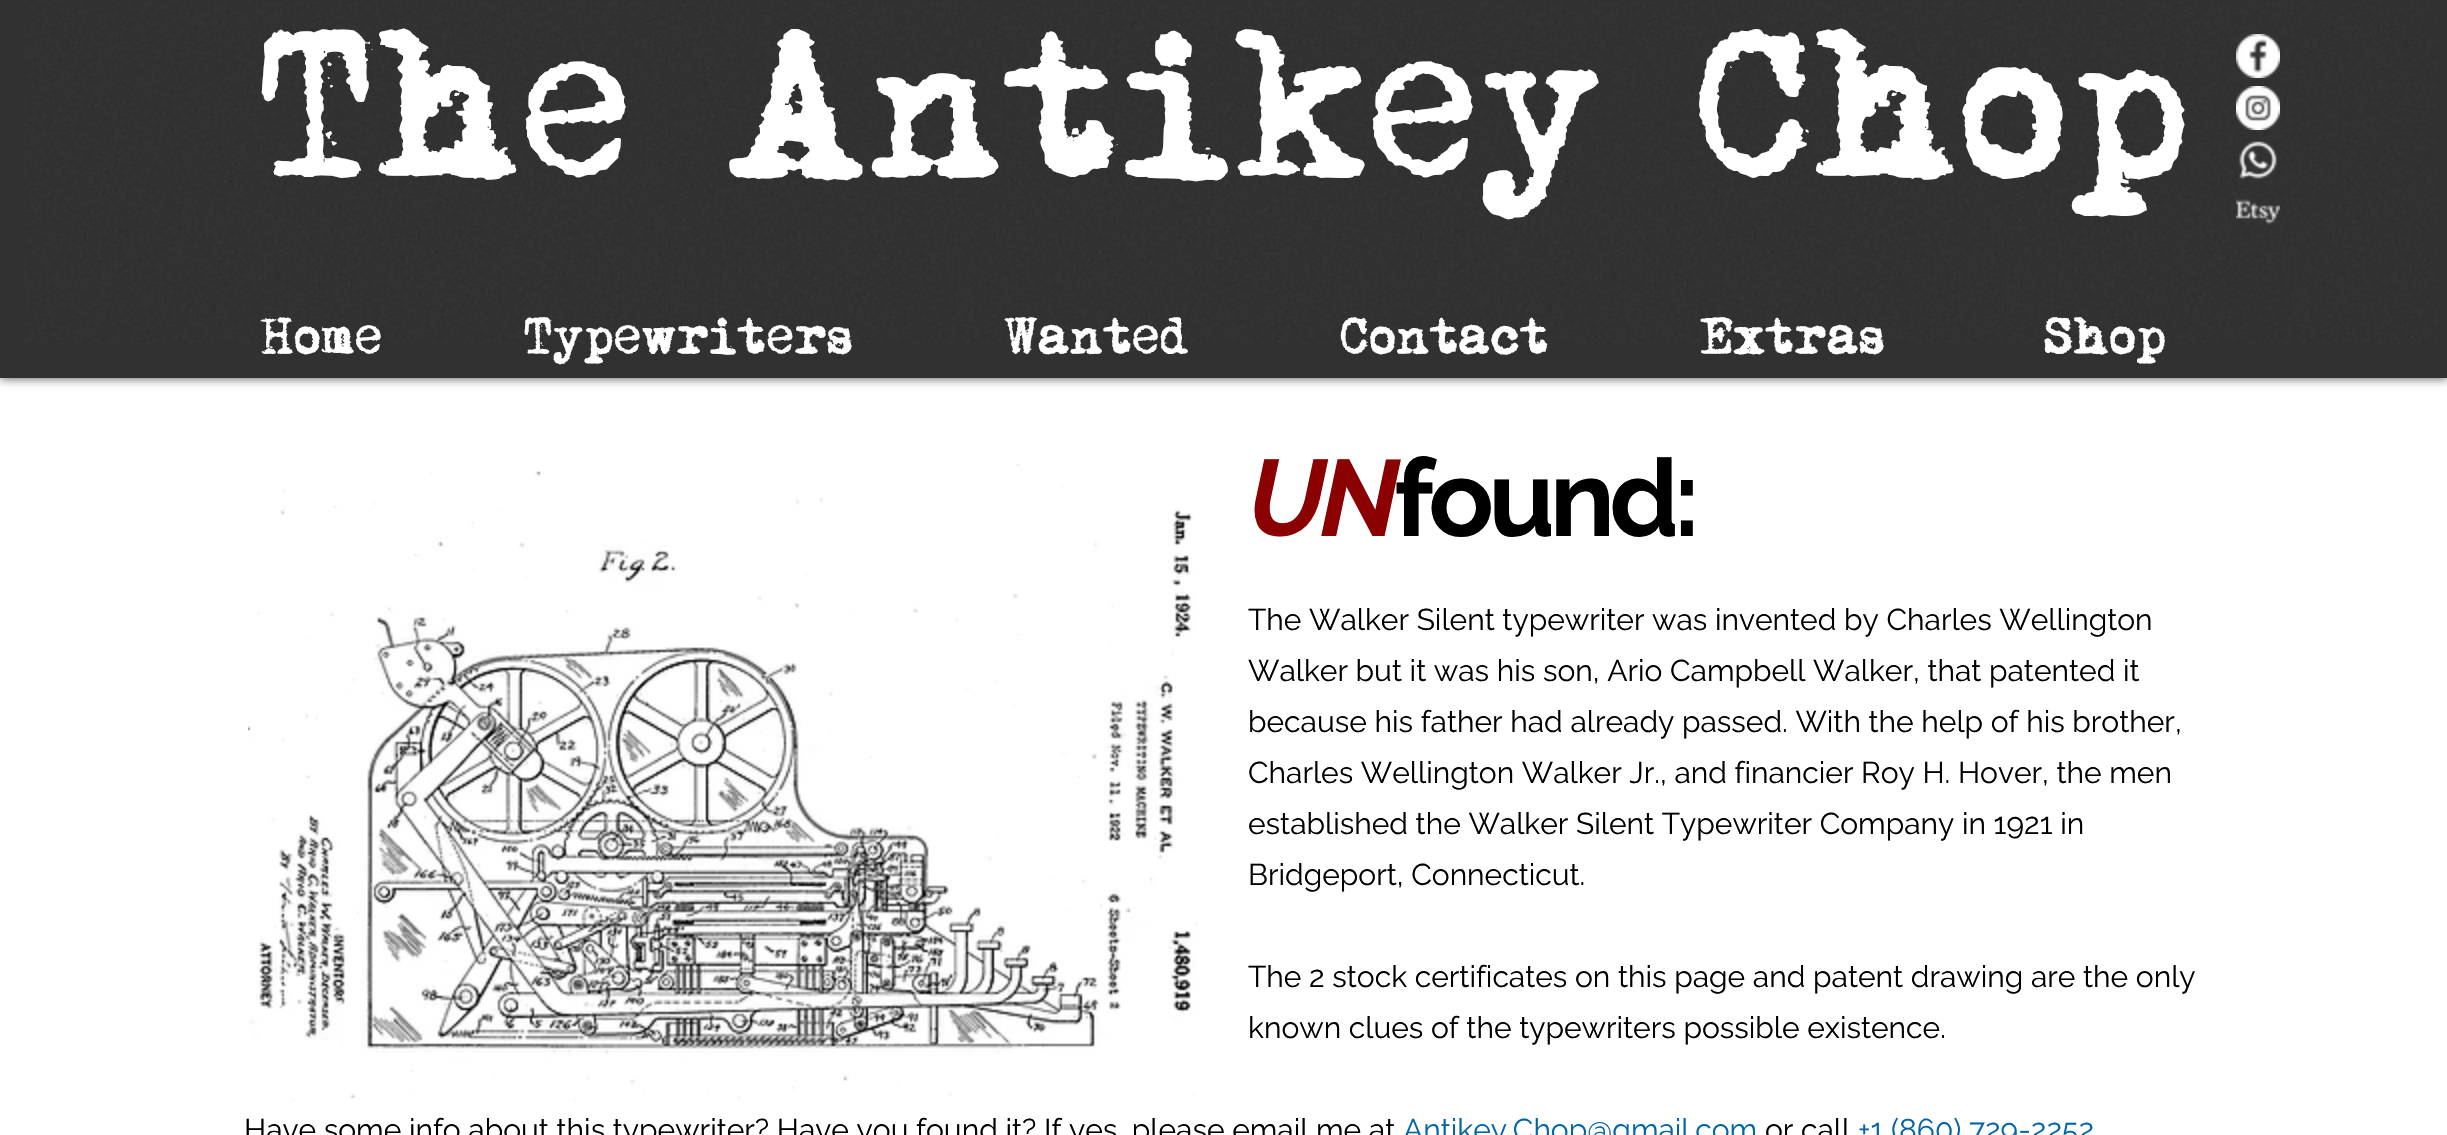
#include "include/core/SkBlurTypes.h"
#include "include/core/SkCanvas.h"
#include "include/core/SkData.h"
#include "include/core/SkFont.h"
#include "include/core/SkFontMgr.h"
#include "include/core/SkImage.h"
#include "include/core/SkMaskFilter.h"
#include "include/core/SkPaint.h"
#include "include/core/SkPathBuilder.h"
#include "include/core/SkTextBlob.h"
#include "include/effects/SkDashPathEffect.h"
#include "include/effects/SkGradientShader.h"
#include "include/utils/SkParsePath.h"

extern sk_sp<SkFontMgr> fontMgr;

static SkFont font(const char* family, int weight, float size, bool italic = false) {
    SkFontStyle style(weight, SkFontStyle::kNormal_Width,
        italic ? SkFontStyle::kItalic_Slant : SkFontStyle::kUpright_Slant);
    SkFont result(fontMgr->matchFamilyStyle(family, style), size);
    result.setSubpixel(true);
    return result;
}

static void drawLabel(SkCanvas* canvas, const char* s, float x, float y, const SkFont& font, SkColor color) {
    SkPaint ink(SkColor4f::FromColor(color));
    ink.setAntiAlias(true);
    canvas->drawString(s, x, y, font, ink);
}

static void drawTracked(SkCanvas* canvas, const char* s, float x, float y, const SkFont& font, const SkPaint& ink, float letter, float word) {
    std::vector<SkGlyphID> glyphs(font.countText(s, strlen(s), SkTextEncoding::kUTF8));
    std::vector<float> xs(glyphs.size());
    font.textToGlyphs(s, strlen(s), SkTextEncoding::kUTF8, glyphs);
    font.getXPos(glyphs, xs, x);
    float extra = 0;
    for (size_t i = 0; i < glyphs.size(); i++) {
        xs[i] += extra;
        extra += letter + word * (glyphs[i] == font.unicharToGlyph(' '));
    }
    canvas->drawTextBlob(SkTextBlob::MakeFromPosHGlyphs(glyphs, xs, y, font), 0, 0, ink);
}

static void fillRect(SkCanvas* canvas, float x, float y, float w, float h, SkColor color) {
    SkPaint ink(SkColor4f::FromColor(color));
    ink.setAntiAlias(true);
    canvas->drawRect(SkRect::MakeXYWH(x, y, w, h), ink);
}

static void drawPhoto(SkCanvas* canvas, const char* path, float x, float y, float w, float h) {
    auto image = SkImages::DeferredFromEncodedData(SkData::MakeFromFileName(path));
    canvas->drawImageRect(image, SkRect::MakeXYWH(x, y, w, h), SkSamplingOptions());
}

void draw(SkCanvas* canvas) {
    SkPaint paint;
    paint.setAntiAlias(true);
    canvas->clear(0xFFFFFFFF);
    paint.setColor(0xB3000000);
    paint.setMaskFilter(SkMaskFilter::MakeBlur(kNormal_SkBlurStyle, 5));
    canvas->drawRect(SkRect::MakeXYWH(0, 0, 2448, 378), paint);
    paint.setMaskFilter(nullptr);
    fillRect(canvas, 0, 0, 2447, 378, 0xFF313131);
    drawPhoto(canvas, "assets/img1.png", 23, 1, 2414, 343);
    SkFont font1 = font("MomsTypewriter", 400, 186);
    drawLabel(canvas, "The Antikey Chop", 259, 178, font1, 0xFFFFFFFF);
    drawPhoto(canvas, "assets/img2.png", 2236, 34, 44, 44);
    drawPhoto(canvas, "assets/img3.png", 2236, 86, 44, 44);
    drawPhoto(canvas, "assets/img4.png", 2239, 141, 38, 38);
    drawPhoto(canvas, "assets/img5.png", 2236, 199, 44, 26);
    SkFont font2 = font("MomsTypewriter", 400, 46);
    drawLabel(canvas, "Home", 260, 354, font2, 0xFFFFFFFF);
    drawLabel(canvas, "Typewriters", 524, 354, font2, 0xFFFFFFFF);
    drawLabel(canvas, "Wanted", 1004, 354, font2, 0xFFFFFFFF);
    drawLabel(canvas, "Contact", 1340, 354, font2, 0xFFFFFFFF);
    drawLabel(canvas, "Extras", 1700, 354, font2, 0xFFFFFFFF);
    drawLabel(canvas, "Shop", 2044, 354, font2, 0xFFFFFFFF);
    drawPhoto(canvas, "assets/img6.png", 248, 464, 950, 638);
    SkFont font3 = font("Raleway", 700, 108, true);
    paint.setColor(0xFF8B0000);
    drawTracked(canvas, "UN", 1248, 536, font3, paint, -5.5f, 0);
    SkFont font4 = font("Raleway", 700, 108);
    paint.setColor(0xFF000000);
    drawTracked(canvas, "found:", 1394, 536, font4, paint, -5.5f, 0);
    SkFont font5 = font("Raleway", 400, 30);
    drawLabel(canvas, "The Walker Silent typewriter was invented by Charles Wellington", 1248, 630, font5, 0xFF000000);
    drawLabel(canvas, "Walker but it was his son, Ario Campbell Walker, that patented it", 1248, 681, font5, 0xFF000000);
    drawLabel(canvas, "because his father had already passed. With the help of his brother,", 1248, 732, font5, 0xFF000000);
    drawLabel(canvas, "Charles Wellington Walker Jr., and financier Roy H. Hover, the men", 1248, 783, font5, 0xFF000000);
    drawLabel(canvas, "established the Walker Silent Typewriter Company in 1921 in", 1248, 834, font5, 0xFF000000);
    drawLabel(canvas, "Bridgeport, Connecticut.", 1248, 885, font5, 0xFF000000);
    drawLabel(canvas, "The 2 stock certificates on this page and patent drawing are the only", 1248, 987, font5, 0xFF000000);
    drawLabel(canvas, "known clues of the typewriters possible existence.", 1248, 1038, font5, 0xFF000000);
    drawLabel(canvas, "Have some info about this typewriter? Have you found it? If yes, please email me at", 244, 1140, font5, 0xFF000000);
    drawLabel(canvas, "Antikey.Chop@gmail.com", 1403, 1140, font5, 0xFF0065A9);
    drawLabel(canvas, "or call", 1765, 1140, font5, 0xFF000000);
    drawLabel(canvas, "+1 (860) 729-2252", 1858, 1140, font5, 0xFF0065A9);
}
